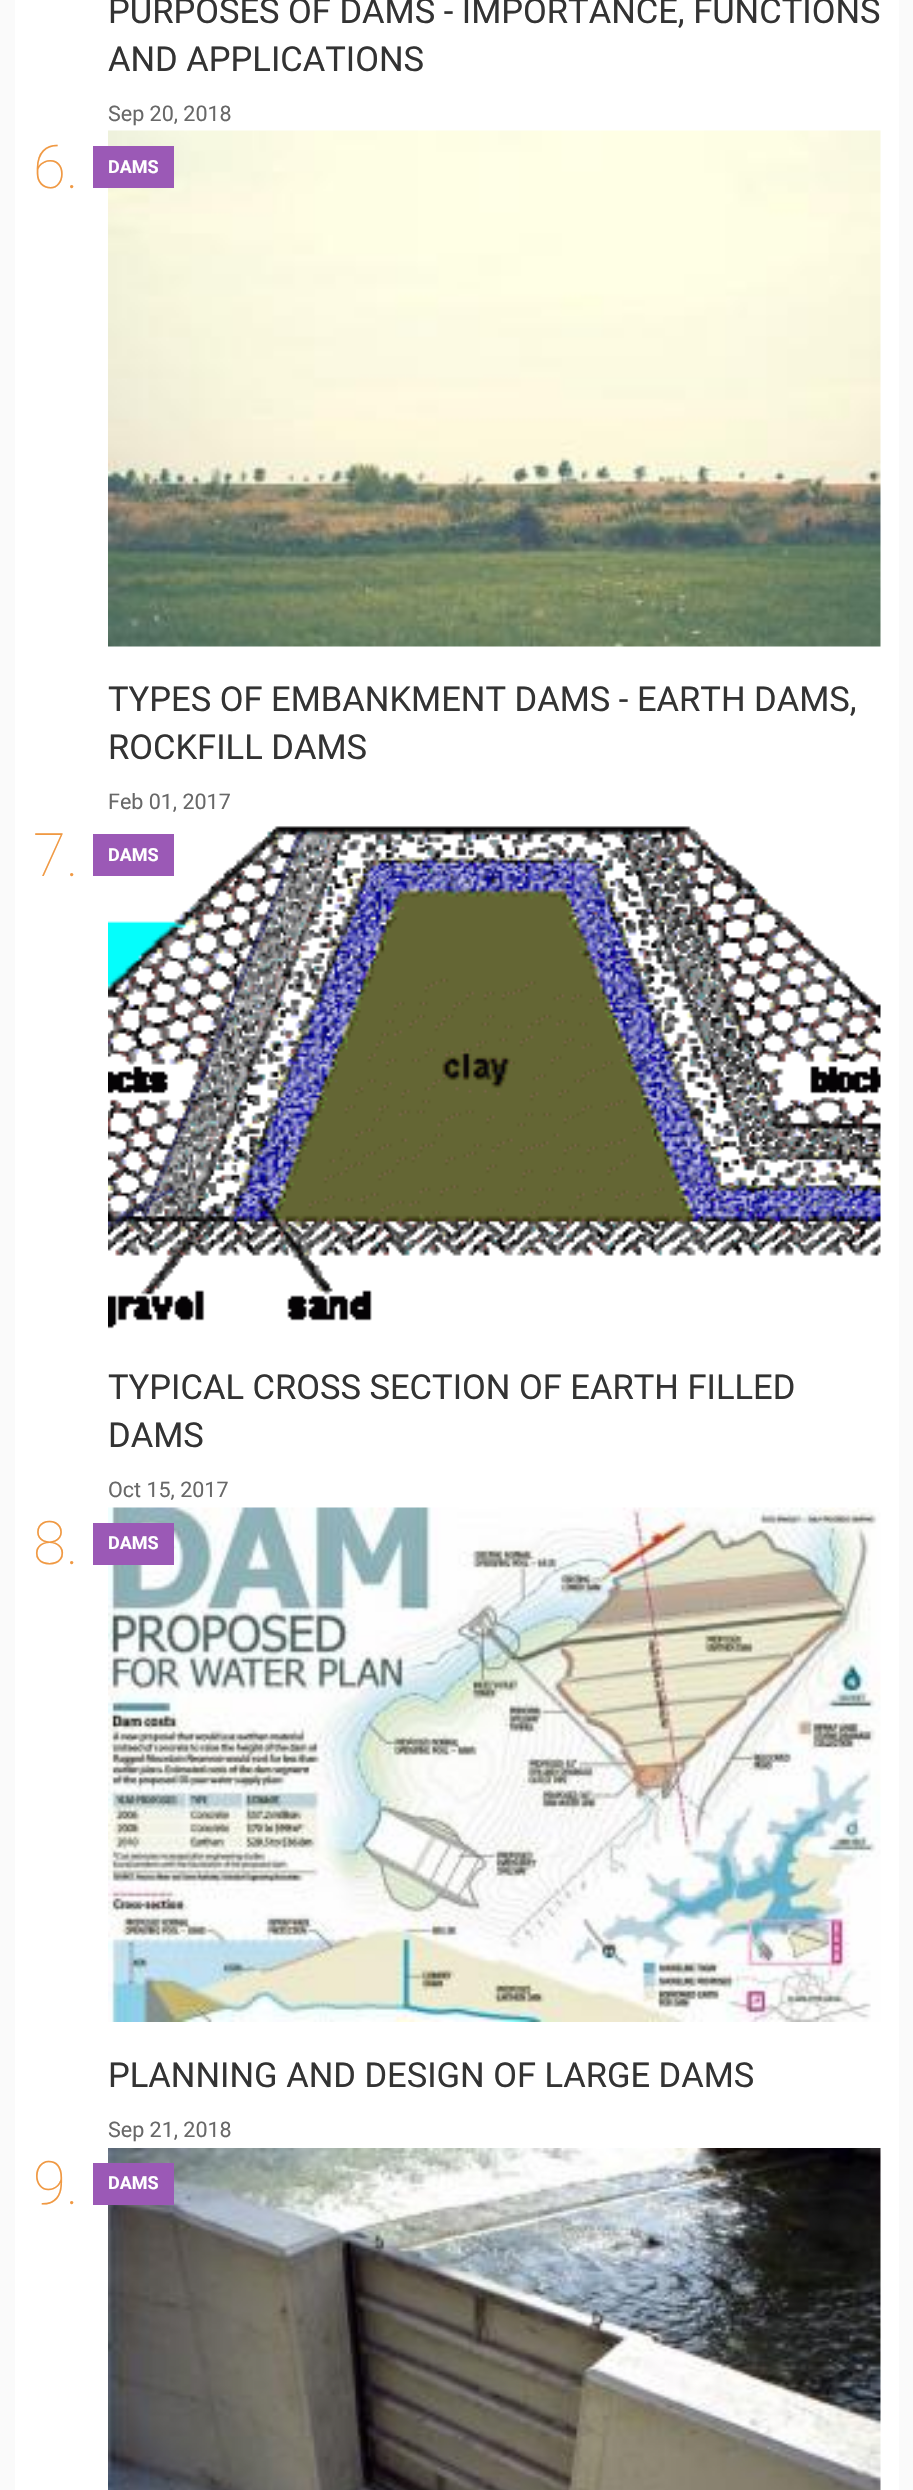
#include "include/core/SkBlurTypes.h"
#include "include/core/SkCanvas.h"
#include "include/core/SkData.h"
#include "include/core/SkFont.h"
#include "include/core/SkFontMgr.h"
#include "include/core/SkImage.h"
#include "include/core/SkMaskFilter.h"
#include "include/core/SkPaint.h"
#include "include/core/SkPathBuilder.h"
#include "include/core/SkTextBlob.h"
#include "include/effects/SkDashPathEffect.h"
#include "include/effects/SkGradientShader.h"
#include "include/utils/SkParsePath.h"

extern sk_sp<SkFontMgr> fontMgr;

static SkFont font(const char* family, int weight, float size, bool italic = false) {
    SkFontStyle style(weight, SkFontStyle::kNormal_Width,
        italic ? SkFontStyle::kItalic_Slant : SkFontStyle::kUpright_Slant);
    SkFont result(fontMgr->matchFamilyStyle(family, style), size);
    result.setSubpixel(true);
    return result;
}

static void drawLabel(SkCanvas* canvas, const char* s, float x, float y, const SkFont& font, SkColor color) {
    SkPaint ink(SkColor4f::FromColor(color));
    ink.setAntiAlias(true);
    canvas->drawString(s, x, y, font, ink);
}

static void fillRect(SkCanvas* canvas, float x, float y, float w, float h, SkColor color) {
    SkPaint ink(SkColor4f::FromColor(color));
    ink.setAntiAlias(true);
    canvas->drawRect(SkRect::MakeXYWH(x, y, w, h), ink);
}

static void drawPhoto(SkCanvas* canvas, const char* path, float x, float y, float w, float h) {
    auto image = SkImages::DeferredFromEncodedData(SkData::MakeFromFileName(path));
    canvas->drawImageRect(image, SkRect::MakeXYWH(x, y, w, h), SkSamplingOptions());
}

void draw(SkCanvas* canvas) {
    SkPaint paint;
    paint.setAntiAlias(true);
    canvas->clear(0xFFFAFAFA);
    fillRect(canvas, 15, 0, 884, 2490, 0xFFFFFFFF);
    SkFont font1 = font("Roboto", 400, 34.5f);
    drawLabel(canvas, "PURPOSES OF DAMS - IMPORTANCE, FUNCTIONS", 108, 23, font1, 0xFF333333);
    drawLabel(canvas, "AND APPLICATIONS", 108, 71, font1, 0xFF333333);
    SkFont font2 = font("Roboto", 400, 21.5f);
    drawLabel(canvas, "Sep 20, 2018", 108, 121, font2, 0xFF686868);
    SkFont font3 = font("Roboto", 100, 60);
    drawLabel(canvas, "6.", 33, 188, font3, 0xFFF09943);
    drawPhoto(canvas, "assets/img1.png", 108, 130, 773, 517);
    fillRect(canvas, 93, 146, 81, 42, 0xFF9B59B6);
    SkFont font4 = font("Roboto", 700, 18);
    drawLabel(canvas, "DAMS", 108, 173, font4, 0xFFFFFFFF);
    drawLabel(canvas, "Feb 01, 2017", 108, 809, font2, 0xFF686868);
    drawLabel(canvas, "TYPES OF EMBANKMENT DAMS - EARTH DAMS,", 108, 711, font1, 0xFF333333);
    drawLabel(canvas, "ROCKFILL DAMS", 108, 759, font1, 0xFF333333);
    drawLabel(canvas, "7.", 33, 876, font3, 0xFFF09943);
    drawPhoto(canvas, "assets/img2.png", 108, 826, 773, 503);
    fillRect(canvas, 93, 834, 81, 42, 0xFF9B59B6);
    drawLabel(canvas, "DAMS", 108, 861, font4, 0xFFFFFFFF);
    drawLabel(canvas, "Oct 15, 2017", 108, 1497, font2, 0xFF686868);
    drawLabel(canvas, "TYPICAL CROSS SECTION OF EARTH FILLED", 108, 1399, font1, 0xFF333333);
    drawLabel(canvas, "DAMS", 108, 1447, font1, 0xFF333333);
    drawLabel(canvas, "8.", 33, 1564, font3, 0xFFF09943);
    drawPhoto(canvas, "assets/img3.png", 108, 1507, 773, 515);
    fillRect(canvas, 93, 1523, 81, 42, 0xFF9B59B6);
    drawLabel(canvas, "DAMS", 108, 1549, font4, 0xFFFFFFFF);
    drawLabel(canvas, "Sep 21, 2018", 108, 2137, font2, 0xFF686868);
    drawLabel(canvas, "PLANNING AND DESIGN OF LARGE DAMS", 108, 2087, font1, 0xFF333333);
    drawLabel(canvas, "9.", 33, 2204, font3, 0xFFF09943);
    drawPhoto(canvas, "assets/img4.png", 108, 2148, 773, 342);
    fillRect(canvas, 93, 2163, 81, 42, 0xFF9B59B6);
    drawLabel(canvas, "DAMS", 108, 2189, font4, 0xFFFFFFFF);
}
